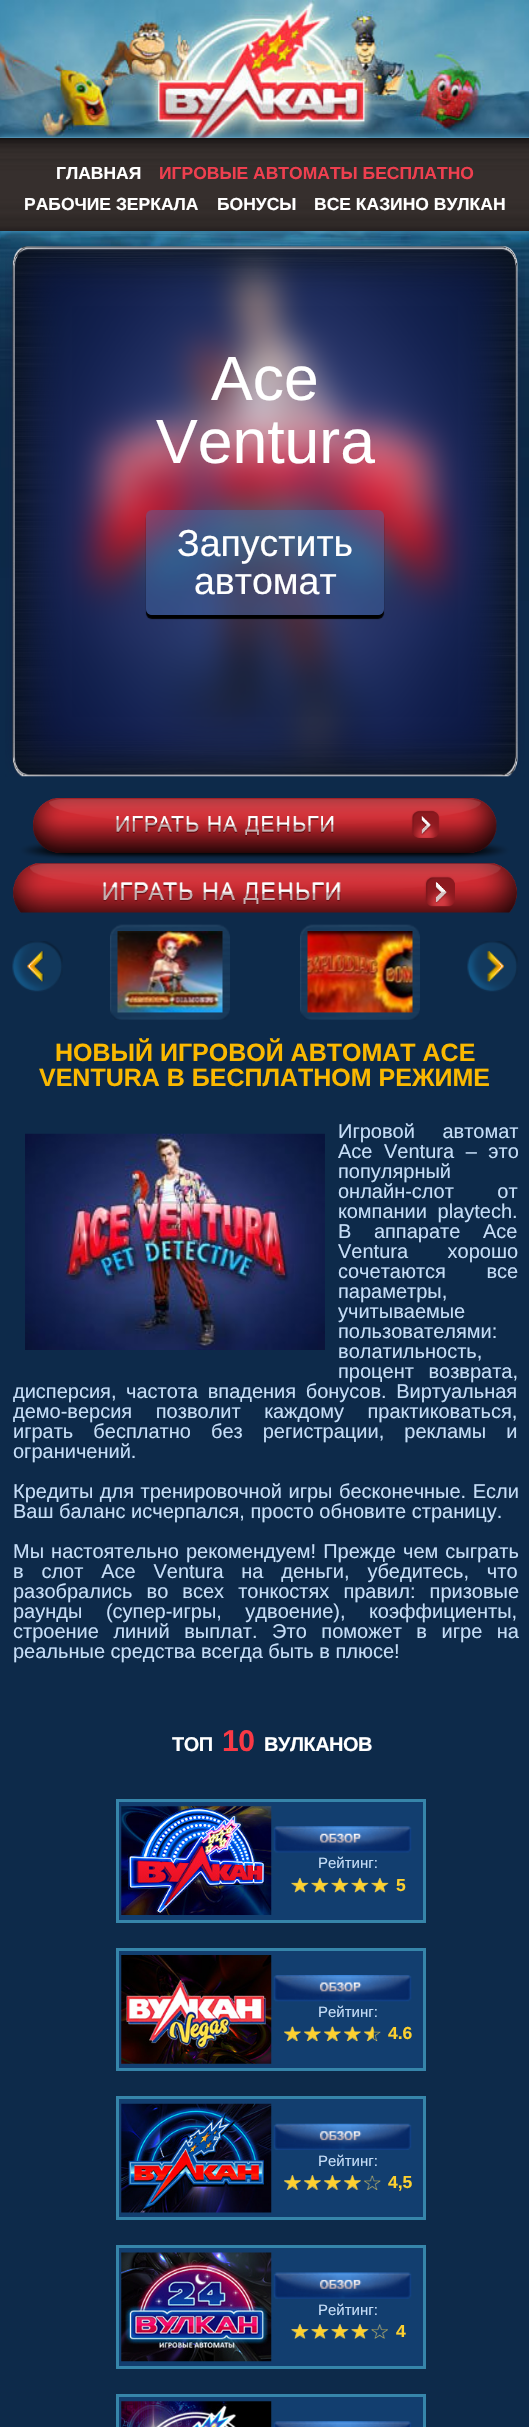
#include "include/core/SkBlurTypes.h"
#include "include/core/SkCanvas.h"
#include "include/core/SkData.h"
#include "include/core/SkFont.h"
#include "include/core/SkFontMgr.h"
#include "include/core/SkImage.h"
#include "include/core/SkMaskFilter.h"
#include "include/core/SkPaint.h"
#include "include/core/SkPathBuilder.h"
#include "include/core/SkTextBlob.h"
#include "include/effects/SkDashPathEffect.h"
#include "include/effects/SkGradientShader.h"
#include "include/utils/SkParsePath.h"

extern sk_sp<SkFontMgr> fontMgr;

static SkFont font(const char* family, int weight, float size, bool italic = false) {
    SkFontStyle style(weight, SkFontStyle::kNormal_Width,
        italic ? SkFontStyle::kItalic_Slant : SkFontStyle::kUpright_Slant);
    SkFont result(fontMgr->matchFamilyStyle(family, style), size);
    result.setSubpixel(true);
    return result;
}

static void drawLabel(SkCanvas* canvas, const char* s, float x, float y, const SkFont& font, SkColor color) {
    SkPaint ink(SkColor4f::FromColor(color));
    ink.setAntiAlias(true);
    canvas->drawString(s, x, y, font, ink);
}

static void drawTracked(SkCanvas* canvas, const char* s, float x, float y, const SkFont& font, const SkPaint& ink, float letter, float word) {
    std::vector<SkGlyphID> glyphs(font.countText(s, strlen(s), SkTextEncoding::kUTF8));
    std::vector<float> xs(glyphs.size());
    font.textToGlyphs(s, strlen(s), SkTextEncoding::kUTF8, glyphs);
    font.getXPos(glyphs, xs, x);
    float extra = 0;
    for (size_t i = 0; i < glyphs.size(); i++) {
        xs[i] += extra;
        extra += letter + word * (glyphs[i] == font.unicharToGlyph(' '));
    }
    canvas->drawTextBlob(SkTextBlob::MakeFromPosHGlyphs(glyphs, xs, y, font), 0, 0, ink);
}

static void fillRect(SkCanvas* canvas, float x, float y, float w, float h, SkColor color) {
    SkPaint ink(SkColor4f::FromColor(color));
    ink.setAntiAlias(true);
    canvas->drawRect(SkRect::MakeXYWH(x, y, w, h), ink);
}

static void fillRRect(SkCanvas* canvas, float x, float y, float w, float h, float radius, SkColor color) {
    SkPaint ink(SkColor4f::FromColor(color));
    ink.setAntiAlias(true);
    canvas->drawRoundRect(SkRect::MakeXYWH(x, y, w, h), radius, radius, ink);
}

static void drawPhoto(SkCanvas* canvas, const char* path, float x, float y, float w, float h) {
    auto image = SkImages::DeferredFromEncodedData(SkData::MakeFromFileName(path));
    canvas->drawImageRect(image, SkRect::MakeXYWH(x, y, w, h), SkSamplingOptions());
}

static SkPath parsePath(const char* data, bool evenOdd = false) {
    SkPath result = *SkParsePath::FromSVGString(data);
    if (evenOdd) result.setFillType(SkPathFillType::kEvenOdd);
    return result;
}

void draw(SkCanvas* canvas) {
    SkPaint paint;
    paint.setAntiAlias(true);
    canvas->clear(0xFFFFFFFF);
    drawPhoto(canvas, "assets/img1.png", 0, 0, 529, 138);
    fillRect(canvas, 0, 601, 529, 1826, 0xFF0D2A4A);
    drawPhoto(canvas, "assets/img2.png", 0, 137, 529, 464);
    paint.setColor(0xCC4F9BC2);
    paint.setMaskFilter(SkMaskFilter::MakeBlur(kNormal_SkBlurStyle, 3));
    canvas->drawRect(SkRect::MakeXYWH(-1, 136, 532, 97), paint);
    paint.setMaskFilter(nullptr);
    {
        const SkColor colors[] = {0xFF141111, 0xFF181414, 0xFF201C1B, 0xFF221D1D, 0xFF2A2523, 0xFF2B2524, 0xFF322C2A, 0xFF302A28, 0xFF352E2C, 0xFF342D2B, 0xFF362F2D, 0xFF312B29, 0xFF362F2D, 0xFF332C2A, 0xFF362F2D, 0xFF342D2B, 0xFF362F2D, 0xFF362F2D, 0xFF342D2B, 0xFF362F2D, 0xFF322C2A, 0xFF352E2C, 0xFF2E2826, 0xFF302A28, 0xFF2F2927, 0xFF251F1F};
        const float stops[] = {0, 0.02f, 0.04f, 0.06f, 0.08f, 0.1f, 0.14f, 0.16f, 0.18f, 0.2f, 0.22f, 0.24f, 0.29f, 0.31f, 0.33f, 0.35f, 0.37f, 0.65f, 0.67f, 0.69f, 0.76f, 0.8f, 0.88f, 0.9f, 0.94f, 1};
        const SkPoint ends[] = {{265, 137}, {265, 231}};
        paint.setShader(SkGradientShader::MakeLinear(ends, colors, stops, 26, SkTileMode::kClamp));
        paint.setAlpha(255);
    }
    canvas->drawRect(SkRect::MakeXYWH(0, 138, 529, 93), paint);
    SkFont font1 = font("Liberation Sans", 700, 17.5f);
    drawLabel(canvas, "ГЛАВНАЯ", 56, 179, font1, 0xFFFFFFFF);
    drawLabel(canvas, "ИГРОВЫЕ АВТОМАТЫ БЕСПЛАТНО", 159, 179, font1, 0xFFEF3F4F);
    drawLabel(canvas, "РАБОЧИЕ ЗЕРКАЛА", 24, 210, font1, 0xFFFFFFFF);
    drawLabel(canvas, "БОНУСЫ", 217, 210, font1, 0xFFFFFFFF);
    drawLabel(canvas, "ВСЕ КАЗИНО ВУЛКАН", 314, 210, font1, 0xFFFFFFFF);
    drawPhoto(canvas, "assets/img3.png", 12, 246, 506, 531);
    drawPhoto(canvas, "assets/img4.png", 5, 231, 520, 546);
    SkFont font2 = font("Liberation Sans", 400, 62.5f);
    drawLabel(canvas, "Ace", 211, 400, font2, 0xFFFFFFFF);
    drawLabel(canvas, "Ventura", 156, 463, font2, 0xFFFFFFFF);
    canvas->save();
    canvas->clipPath(parsePath("M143 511H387V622H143ZM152 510H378C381.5 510 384 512.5 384 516V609C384 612.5 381.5 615 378 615H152C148.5 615 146 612.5 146 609V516C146 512.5 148.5 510 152 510Z", true), true);
    paint.setShader(nullptr);
    paint.setColor(0xFF000000);
    paint.setMaskFilter(SkMaskFilter::MakeBlur(kNormal_SkBlurStyle, 0.5f));
    canvas->drawRoundRect(SkRect::MakeXYWH(146, 514, 238, 105), 6, 6, paint);
    paint.setMaskFilter(nullptr);
    canvas->restore();
    fillRRect(canvas, 146, 510, 238, 105, 6, 0x66466FAF);
    SkFont font3 = font("Liberation Sans", 400, 37.5f);
    drawLabel(canvas, "Запустить", 177, 556, font3, 0xFFFFFFFF);
    drawLabel(canvas, "автомат", 194, 594, font3, 0xFFFFFFFF);
    drawPhoto(canvas, "assets/img5.png", 13, 798, 504, 115);
    drawPhoto(canvas, "assets/img6.png", 12, 941, 51, 51);
    drawPhoto(canvas, "assets/img7.png", 110, 924, 120, 96);
    drawPhoto(canvas, "assets/img8.png", 117, 931, 106, 82);
    drawPhoto(canvas, "assets/img9.png", 300, 924, 120, 96);
    drawPhoto(canvas, "assets/img10.png", 307, 931, 106, 82);
    drawPhoto(canvas, "assets/img11.png", 467, 941, 51, 51);
    SkFont font4 = font("Liberation Sans", 700, 25);
    drawLabel(canvas, "НОВЫЙ ИГРОВОЙ АВТОМАТ ACE", 55, 1061, font4, 0xFFFAB800);
    drawLabel(canvas, "VENTURA В БЕСПЛАТНОМ РЕЖИМЕ", 39, 1086, font4, 0xFFFAB800);
    SkFont font5 = font("Liberation Sans", 400, 20);
    paint.setColor(0xFFC6DEF8);
    drawTracked(canvas, "Игровой автомат", 338, 1138, font5, paint, 0, 22);
    drawTracked(canvas, "Ace Ventura – это", 338, 1158, font5, paint, 0, 6);
    drawLabel(canvas, "популярный", 338, 1178, font5, 0xFFC6DEF8);
    drawTracked(canvas, "онлайн-слот от", 338, 1198, font5, paint, 0, 38);
    drawTracked(canvas, "компании playtech.", 338, 1218, font5, paint, 0, 5);
    drawTracked(canvas, "В аппарате Ace", 338, 1238, font5, paint, 0, 17);
    drawTracked(canvas, "Ventura хорошо", 338, 1258, font5, paint, 0, 34);
    drawTracked(canvas, "сочетаются все", 338, 1278, font5, paint, 0, 35);
    drawLabel(canvas, "параметры,", 338, 1298, font5, 0xFFC6DEF8);
    drawLabel(canvas, "учитываемые", 338, 1318, font5, 0xFFC6DEF8);
    drawLabel(canvas, "пользователями:", 338, 1338, font5, 0xFFC6DEF8);
    drawLabel(canvas, "волатильность,", 338, 1358, font5, 0xFFC6DEF8);
    drawTracked(canvas, "процент возврата,", 338, 1378, font5, paint, 0, 9);
    drawTracked(canvas, "дисперсия, частота впадения бонусов. Виртуальная", 13, 1398, font5, paint, 0, 4);
    drawTracked(canvas, "демо-версия позволит каждому практиковаться,", 13, 1418, font5, paint, 0, 18);
    drawTracked(canvas, "играть бесплатно без регистрации, рекламы и", 13, 1438, font5, paint, 0, 14.5f);
    drawLabel(canvas, "ограничений.", 13, 1458, font5, 0xFFC6DEF8);
    drawPhoto(canvas, "assets/img12.png", 25, 1133, 300, 217);
    drawTracked(canvas, "Кредиты для тренировочной игры бесконечные. Если", 13, 1498, font5, paint, 0, 1);
    drawLabel(canvas, "Ваш баланс исчерпался, просто обновите страницу.", 13, 1518, font5, 0xFFC6DEF8);
    drawTracked(canvas, "Мы настоятельно рекомендуем! Прежде чем сыграть", 13, 1558, font5, paint, 0, 1.5f);
    drawTracked(canvas, "в слот Ace Ventura на деньги, убедитесь, что", 13, 1578, font5, paint, 0, 12.25f);
    drawTracked(canvas, "разобрались во всех тонкостях правил: призовые", 13, 1598, font5, paint, 0, 8.5f);
    drawTracked(canvas, "раунды (супер-игры, удвоение), коэффициенты,", 13, 1618, font5, paint, 0, 18);
    drawTracked(canvas, "строение линий выплат. Это поможет в игре на", 13, 1638, font5, paint, 0, 9);
    drawLabel(canvas, "реальные средства всегда быть в плюсе!", 13, 1658, font5, 0xFFC6DEF8);
    SkFont font6 = font("Liberation Sans", 700, 20);
    paint.setColor(0xFFFFFFFF);
    drawTracked(canvas, "ТОП", 172, 1751, font6, paint, -0.5f, 0);
    SkFont font7 = font("Liberation Sans", 700, 30);
    paint.setColor(0xFFF93945);
    drawTracked(canvas, "10", 222, 1751, font7, paint, -0.5f, 0);
    paint.setColor(0xFFFFFFFF);
    drawTracked(canvas, "ВУЛКАНОВ", 264, 1751, font6, paint, -0.5f, 0);
    paint.setColor(0xFF123E6F);
    canvas->drawRect(SkRect::MakeXYWH(117.5f, 1800.5f, 307, 121), paint);
    paint.setStroke(true);
    paint.setStrokeWidth(3);
    paint.setColor(0xFF3685AA);
    canvas->drawRect(SkRect::MakeXYWH(117.5f, 1800.5f, 307, 121), paint);
    drawPhoto(canvas, "assets/img13.png", 121, 1806, 151, 109);
    drawPhoto(canvas, "assets/img14.png", 273, 1826, 139, 27);
    SkFont font8 = font("Liberation Sans", 400, 15);
    drawLabel(canvas, "Рейтинг:", 318, 1868, font8, 0xFFC6DEF8);
    drawPhoto(canvas, "assets/img15.png", 291, 1878, 97, 15);
    drawPhoto(canvas, "assets/img16.png", 291, 1877, 98, 16);
    drawLabel(canvas, "5", 396, 1891, font1, 0xFFFDD02F);
    paint.setStroke(false);
    paint.setColor(0xFF123E6F);
    canvas->drawRect(SkRect::MakeXYWH(117.5f, 1949.5f, 307, 120), paint);
    paint.setStroke(true);
    paint.setColor(0xFF3685AA);
    canvas->drawRect(SkRect::MakeXYWH(117.5f, 1949.5f, 307, 120), paint);
    drawPhoto(canvas, "assets/img17.png", 121, 1955, 151, 109);
    drawPhoto(canvas, "assets/img18.png", 273, 1975, 139, 27);
    drawLabel(canvas, "Рейтинг:", 318, 2017, font8, 0xFFC6DEF8);
    drawPhoto(canvas, "assets/img19.png", 284, 2027, 97, 15);
    drawPhoto(canvas, "assets/img20.png", 284, 2026, 90, 15);
    drawLabel(canvas, "4.6", 388, 2039, font1, 0xFFFDD02F);
    paint.setStroke(false);
    paint.setColor(0xFF123E6F);
    canvas->drawRect(SkRect::MakeXYWH(117.5f, 2097.5f, 307, 121), paint);
    paint.setStroke(true);
    paint.setColor(0xFF3685AA);
    canvas->drawRect(SkRect::MakeXYWH(117.5f, 2097.5f, 307, 121), paint);
    drawPhoto(canvas, "assets/img21.png", 121, 2103, 151, 110);
    drawPhoto(canvas, "assets/img22.png", 273, 2123, 139, 27);
    drawLabel(canvas, "Рейтинг:", 318, 2166, font8, 0xFFC6DEF8);
    drawPhoto(canvas, "assets/img23.png", 284, 2175, 97, 15);
    drawPhoto(canvas, "assets/img24.png", 284, 2175, 77, 15);
    drawLabel(canvas, "4,5", 388, 2188, font1, 0xFFFDD02F);
    paint.setStroke(false);
    paint.setColor(0xFF123E6F);
    canvas->drawRect(SkRect::MakeXYWH(117.5f, 2246.5f, 307, 121), paint);
    paint.setStroke(true);
    paint.setColor(0xFF3685AA);
    canvas->drawRect(SkRect::MakeXYWH(117.5f, 2246.5f, 307, 121), paint);
    drawPhoto(canvas, "assets/img25.png", 121, 2252, 151, 110);
    drawPhoto(canvas, "assets/img26.png", 273, 2272, 139, 27);
    drawLabel(canvas, "Рейтинг:", 318, 2315, font8, 0xFFC6DEF8);
    drawPhoto(canvas, "assets/img27.png", 291, 2324, 97, 15);
    drawPhoto(canvas, "assets/img28.png", 291, 2324, 78, 15);
    drawLabel(canvas, "4", 396, 2337, font1, 0xFFFDD02F);
    paint.setStroke(false);
    paint.setColor(0xFF123E6F);
    canvas->drawRect(SkRect::MakeXYWH(117.5f, 2395.5f, 307, 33), paint);
    paint.setStroke(true);
    paint.setColor(0xFF3685AA);
    canvas->drawRect(SkRect::MakeXYWH(117.5f, 2395.5f, 307, 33), paint);
    drawPhoto(canvas, "assets/img29.png", 121, 2401, 151, 26);
    drawPhoto(canvas, "assets/img30.png", 273, 2421, 139, 6);
}
